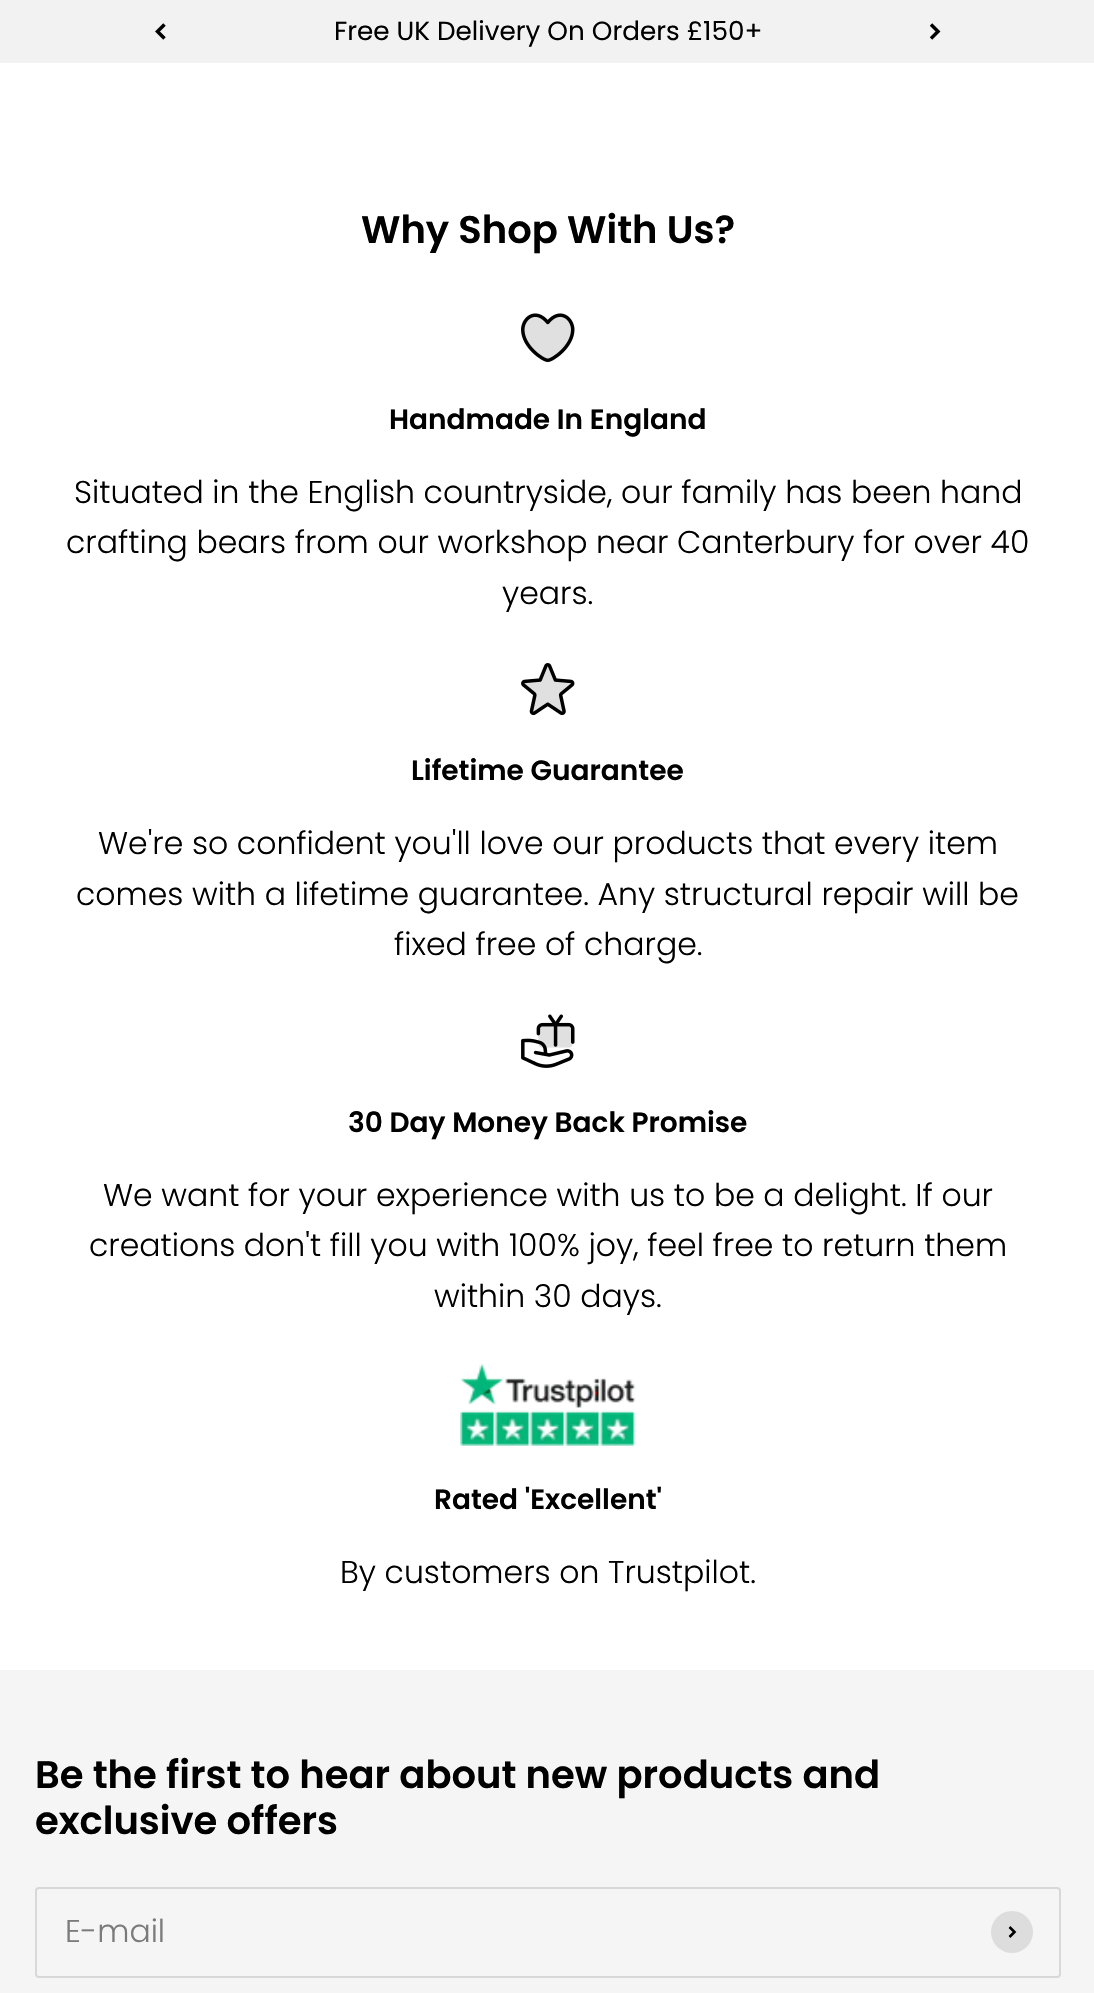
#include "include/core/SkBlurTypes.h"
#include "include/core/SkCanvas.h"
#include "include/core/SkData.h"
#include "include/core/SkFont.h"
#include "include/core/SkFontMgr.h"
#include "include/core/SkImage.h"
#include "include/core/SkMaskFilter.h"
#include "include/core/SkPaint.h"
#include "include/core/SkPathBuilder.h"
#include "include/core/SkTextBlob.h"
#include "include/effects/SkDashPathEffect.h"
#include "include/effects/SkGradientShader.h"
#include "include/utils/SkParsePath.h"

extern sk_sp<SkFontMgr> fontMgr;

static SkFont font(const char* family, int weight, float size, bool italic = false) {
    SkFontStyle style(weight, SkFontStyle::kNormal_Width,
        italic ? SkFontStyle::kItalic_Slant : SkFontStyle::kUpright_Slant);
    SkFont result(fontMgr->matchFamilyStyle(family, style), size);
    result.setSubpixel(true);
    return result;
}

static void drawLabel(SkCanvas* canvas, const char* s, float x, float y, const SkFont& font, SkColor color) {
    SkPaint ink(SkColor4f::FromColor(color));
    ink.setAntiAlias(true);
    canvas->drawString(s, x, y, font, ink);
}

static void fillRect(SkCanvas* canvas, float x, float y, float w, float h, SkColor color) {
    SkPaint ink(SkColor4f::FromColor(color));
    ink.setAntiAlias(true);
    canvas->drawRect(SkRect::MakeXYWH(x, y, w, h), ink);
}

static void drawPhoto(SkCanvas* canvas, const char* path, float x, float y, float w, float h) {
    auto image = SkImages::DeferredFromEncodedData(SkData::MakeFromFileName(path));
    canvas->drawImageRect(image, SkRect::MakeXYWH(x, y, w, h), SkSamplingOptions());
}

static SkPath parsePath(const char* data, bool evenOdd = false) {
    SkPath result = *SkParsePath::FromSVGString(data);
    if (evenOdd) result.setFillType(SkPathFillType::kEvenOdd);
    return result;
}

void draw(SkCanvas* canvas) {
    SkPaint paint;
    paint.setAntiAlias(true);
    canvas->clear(0xFFFFFFFF);
    fillRect(canvas, 0, 0, 1094, 63, 0xFFF2F2F2);
    paint.setStroke(true);
    paint.setStrokeWidth(3.5f);
    paint.setColor(0xFF000000);
    canvas->drawPath(parsePath("M164.5 24.5L157.5 31.5L164.5 38.5"), paint);
    SkFont font1 = font("Poppins", 400, 26.25f);
    drawLabel(canvas, "Free UK Delivery On Orders £150+", 334, 40, font1, 0xFF000000);
    canvas->drawPath(parsePath("M931 38.5L938 31.5L931 24.5"), paint);
    SkFont font2 = font("Poppins", 600, 38.5f);
    drawLabel(canvas, "Why Shop With Us?", 361, 243, font2, 0xFF000000);
    drawPhoto(canvas, "assets/img1.png", 521, 313, 54, 50);
    SkFont font3 = font("Poppins", 600, 28);
    drawLabel(canvas, "Handmade In England", 389, 429, font3, 0xFF000000);
    SkFont font4 = font("Poppins", 300, 31.5f);
    drawLabel(canvas, "Situated in the English countryside, our family has been hand", 74, 503, font4, 0xFF000000);
    drawLabel(canvas, "crafting bears from our workshop near Canterbury for over 40", 66, 553, font4, 0xFF000000);
    drawLabel(canvas, "years.", 502, 604, font4, 0xFF000000);
    drawPhoto(canvas, "assets/img2.png", 521, 663, 54, 53);
    drawLabel(canvas, "Lifetime Guarantee", 411, 780, font3, 0xFF000000);
    drawLabel(canvas, "We're so confident you'll love our products that every item", 98, 854, font4, 0xFF000000);
    drawLabel(canvas, "comes with a lifetime guarantee. Any structural repair will be", 76, 905, font4, 0xFF000000);
    drawLabel(canvas, "fixed free of charge.", 394, 955, font4, 0xFF000000);
    drawPhoto(canvas, "assets/img3.png", 521, 1014, 54, 54);
    drawLabel(canvas, "30 Day Money Back Promise", 348, 1132, font3, 0xFF000000);
    drawLabel(canvas, "We want for your experience with us to be a delight. If our", 103, 1206, font4, 0xFF000000);
    drawLabel(canvas, "creations don't fill you with 100% joy, feel free to return them", 89, 1256, font4, 0xFF000000);
    drawLabel(canvas, "within 30 days.", 434, 1307, font4, 0xFF000000);
    drawPhoto(canvas, "assets/img4.png", 460, 1363, 176, 83);
    drawLabel(canvas, "Rated 'Excellent'", 434, 1509, font3, 0xFF000000);
    drawLabel(canvas, "By customers on Trustpilot.", 340, 1583, font4, 0xFF000000);
    fillRect(canvas, 0, 1670, 1094, 323, 0xFFF5F5F5);
    drawLabel(canvas, "Be the first to hear about new products and", 35, 1788, font2, 0xFF000000);
    drawLabel(canvas, "exclusive offers", 35, 1834, font2, 0xFF000000);
    paint.setStrokeWidth(2);
    paint.setColor(0xFFD8D8D8);
    canvas->drawRoundRect(SkRect::MakeXYWH(36, 1888, 1024, 89), 3, 3, paint);
    drawLabel(canvas, "E-mail", 65, 1942, font4, 0xFF7B7B7B);
    paint.setStroke(false);
    paint.setColor(0xFFDDDDDD);
    canvas->drawCircle(1012, 1932, 21, paint);
    paint.setStroke(true);
    paint.setStrokeWidth(2.6f);
    paint.setColor(0xFF000000);
    canvas->drawPath(parsePath("M1009.5 1937L1014.5 1932L1009.5 1927"), paint);
}
